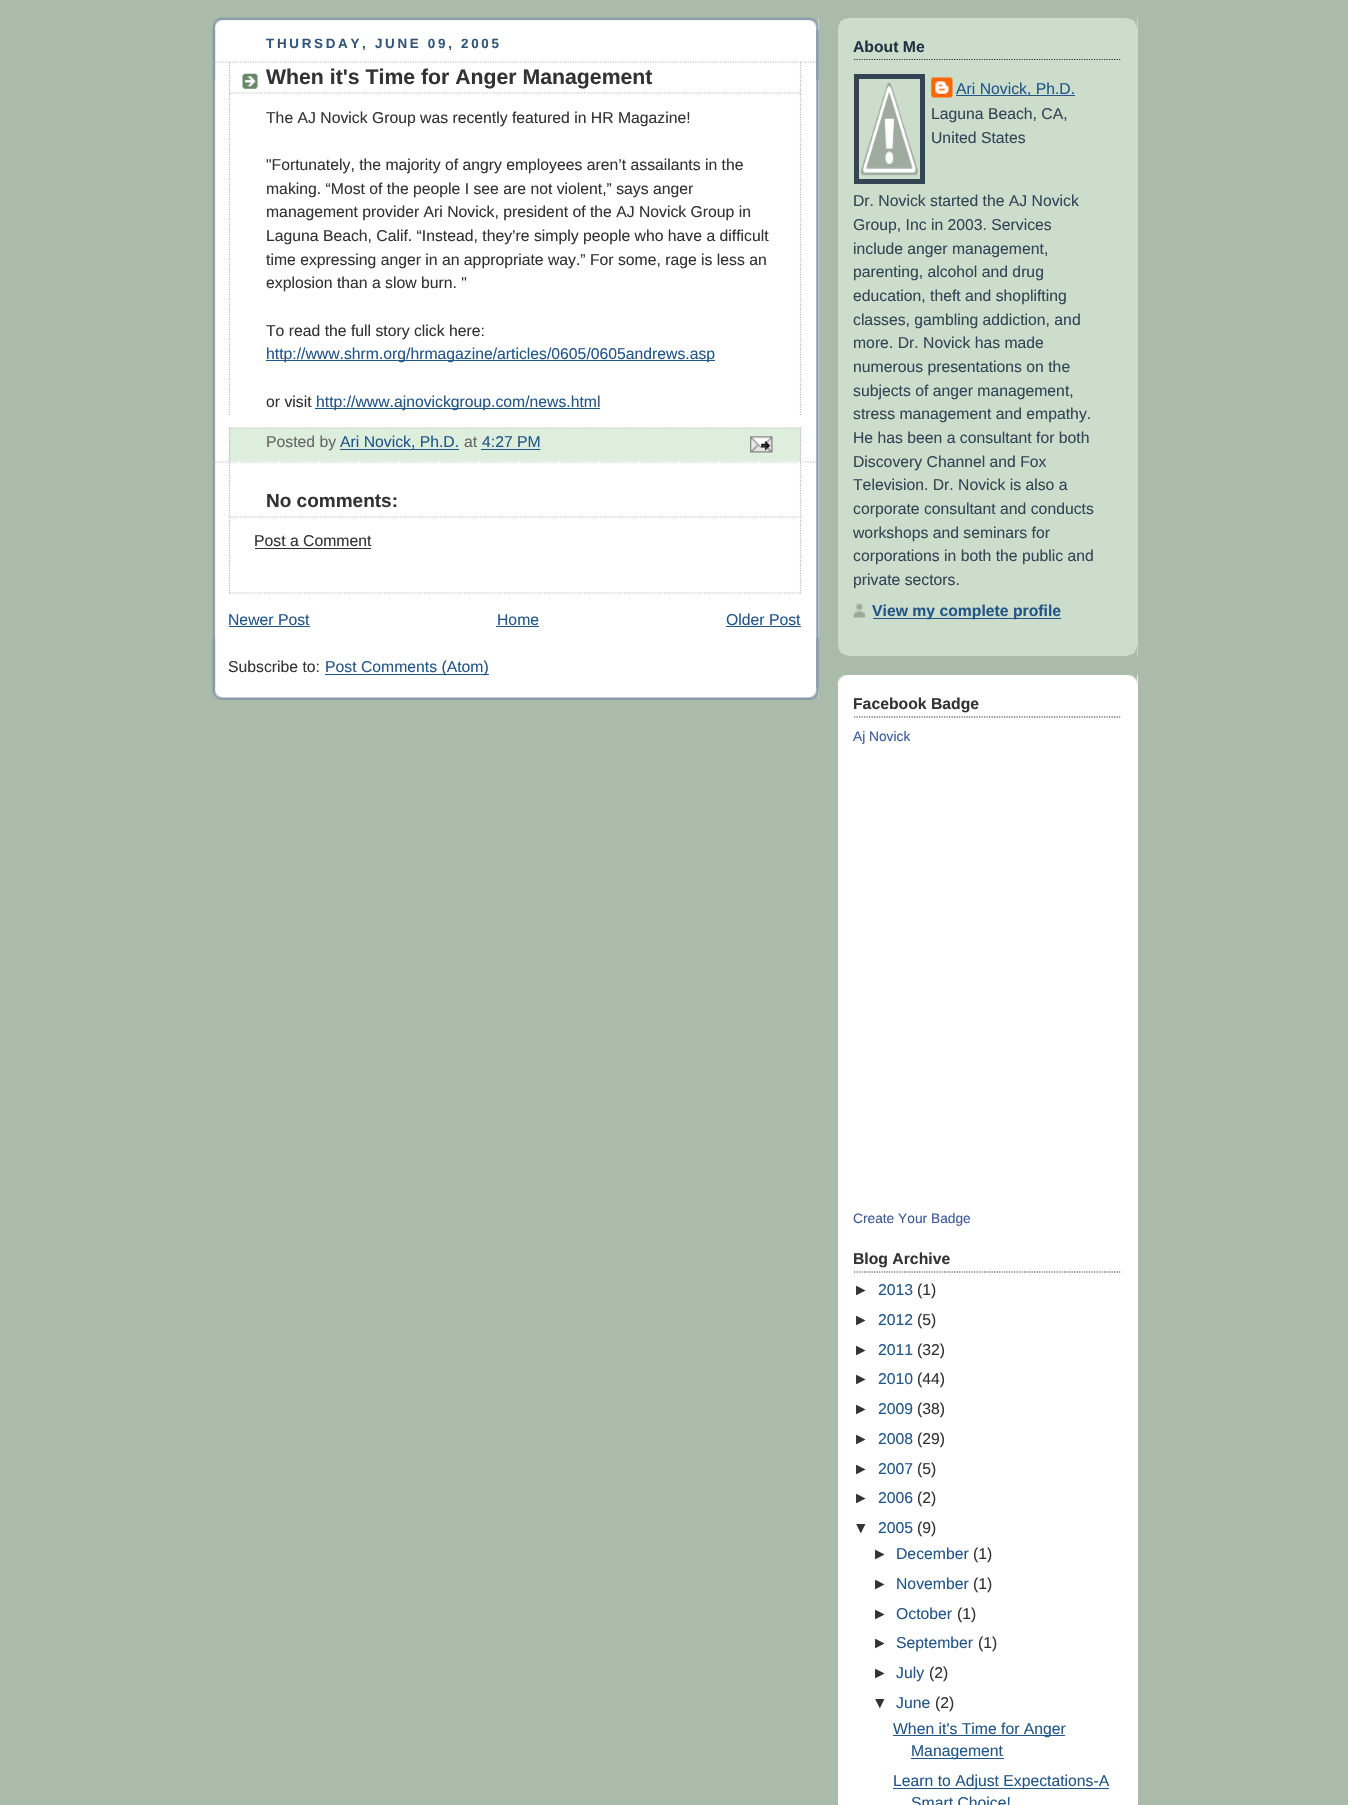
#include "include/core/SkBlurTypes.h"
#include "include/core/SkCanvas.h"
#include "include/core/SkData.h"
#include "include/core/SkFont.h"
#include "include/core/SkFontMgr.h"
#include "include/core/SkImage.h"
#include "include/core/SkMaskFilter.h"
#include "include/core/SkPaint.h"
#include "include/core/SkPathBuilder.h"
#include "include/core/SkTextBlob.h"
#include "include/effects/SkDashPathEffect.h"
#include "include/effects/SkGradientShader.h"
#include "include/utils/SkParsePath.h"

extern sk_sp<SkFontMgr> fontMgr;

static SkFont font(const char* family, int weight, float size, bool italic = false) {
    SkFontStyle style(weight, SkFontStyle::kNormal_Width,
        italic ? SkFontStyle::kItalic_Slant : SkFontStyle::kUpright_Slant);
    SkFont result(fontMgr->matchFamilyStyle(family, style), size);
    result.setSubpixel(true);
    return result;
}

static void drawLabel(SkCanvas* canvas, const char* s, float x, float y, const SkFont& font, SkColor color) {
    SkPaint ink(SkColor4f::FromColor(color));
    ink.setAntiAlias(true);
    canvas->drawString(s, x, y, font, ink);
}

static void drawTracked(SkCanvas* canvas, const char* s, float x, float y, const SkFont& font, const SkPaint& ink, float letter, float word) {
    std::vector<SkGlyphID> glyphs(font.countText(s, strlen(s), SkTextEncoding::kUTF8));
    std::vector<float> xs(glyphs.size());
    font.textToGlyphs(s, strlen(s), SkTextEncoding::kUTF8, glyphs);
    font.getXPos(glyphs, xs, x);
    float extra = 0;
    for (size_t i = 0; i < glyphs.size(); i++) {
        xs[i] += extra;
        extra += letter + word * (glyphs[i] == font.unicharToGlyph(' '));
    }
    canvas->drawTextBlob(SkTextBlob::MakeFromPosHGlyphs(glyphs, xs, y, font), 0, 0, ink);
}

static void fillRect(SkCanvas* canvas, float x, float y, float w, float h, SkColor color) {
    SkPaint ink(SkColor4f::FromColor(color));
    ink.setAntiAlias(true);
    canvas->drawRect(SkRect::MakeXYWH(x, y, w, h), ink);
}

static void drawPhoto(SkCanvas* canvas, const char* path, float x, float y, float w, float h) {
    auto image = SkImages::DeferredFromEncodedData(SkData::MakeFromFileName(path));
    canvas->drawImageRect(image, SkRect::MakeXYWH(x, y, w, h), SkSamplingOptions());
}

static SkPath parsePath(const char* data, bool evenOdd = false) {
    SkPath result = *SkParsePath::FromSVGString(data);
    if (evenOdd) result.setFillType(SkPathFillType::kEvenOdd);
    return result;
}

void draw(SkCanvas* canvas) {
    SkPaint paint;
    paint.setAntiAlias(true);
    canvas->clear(0xFFAABBAA);
    fillRect(canvas, 214, 18, 605, 682, 0xFFFFFFFF);
    drawPhoto(canvas, "assets/img1.png", 212, 637, 607, 63);
    drawPhoto(canvas, "assets/img2.png", 212, 17, 607, 63);
    drawPhoto(canvas, "assets/img3.png", 212, 30, 607, 658);
    SkFont font1 = font("Liberation Sans", 700, 13.4f);
    paint.setColor(0xFF335577);
    drawTracked(canvas, "THURSDAY, JUNE 09, 2005", 266, 48, font1, paint, 2.7f, 0);
    paint.setStroke(true);
    paint.setStrokeWidth(1.2f);
    paint.setColor(0xFFBBBBBB);
    paint.setPathEffect(SkDashPathEffect::Make({{1.25f, 1.25f}}, 0));
    canvas->drawPath(parsePath("M212.5 62H817.5"), paint);
    paint.setPathEffect(nullptr);
    paint.setPathEffect(SkDashPathEffect::Make({{1.25f, 1.25f}}, 0));
    canvas->drawPath(parsePath("M212.5 462H817.5"), paint);
    paint.setPathEffect(nullptr);
    drawPhoto(canvas, "assets/img4.png", 242, 73, 16, 16);
    paint.setPathEffect(SkDashPathEffect::Make({{1.25f, 1.25f}}, 0));
    canvas->drawPath(parsePath("M800.5 62.5V94"), paint);
    paint.setPathEffect(nullptr);
    paint.setPathEffect(SkDashPathEffect::Make({{1.25f, 1.25f}}, 0));
    canvas->drawPath(parsePath("M229 93H801"), paint);
    paint.setPathEffect(nullptr);
    paint.setPathEffect(SkDashPathEffect::Make({{1.25f, 1.25f}}, 0));
    canvas->drawPath(parsePath("M229.5 62.5V94"), paint);
    paint.setPathEffect(nullptr);
    SkFont font2 = font("Liberation Sans", 700, 21.25f);
    drawLabel(canvas, "When it's Time for Anger Management", 266, 84, font2, 0xFF333333);
    paint.setPathEffect(SkDashPathEffect::Make({{1.25f, 1.25f}}, 0));
    canvas->drawPath(parsePath("M800.5 94V415"), paint);
    paint.setPathEffect(nullptr);
    paint.setPathEffect(SkDashPathEffect::Make({{1.25f, 1.25f}}, 0));
    canvas->drawPath(parsePath("M229.5 94V415"), paint);
    paint.setPathEffect(nullptr);
    SkFont font3 = font("Liberation Sans", 400, 15.75f);
    drawLabel(canvas, "The AJ Novick Group was recently featured in HR Magazine!", 266, 123, font3, 0xFF333333);
    drawLabel(canvas, "\"Fortunately, the majority of angry employees aren’t assailants in the", 266, 170, font3, 0xFF333333);
    drawLabel(canvas, "making. “Most of the people I see are not violent,” says anger", 266, 194, font3, 0xFF333333);
    drawLabel(canvas, "management provider Ari Novick, president of the AJ Novick Group in", 266, 217, font3, 0xFF333333);
    drawLabel(canvas, "Laguna Beach, Calif. “Instead, they’re simply people who have a difficult", 266, 241, font3, 0xFF333333);
    drawLabel(canvas, "time expressing anger in an appropriate way.” For some, rage is less an", 266, 265, font3, 0xFF333333);
    drawLabel(canvas, "explosion than a slow burn. \"", 266, 288, font3, 0xFF333333);
    drawLabel(canvas, "To read the full story click here:", 266, 336, font3, 0xFF333333);
    fillRect(canvas, 266, 360, 449, 1, 0xFF225588);
    drawLabel(canvas, "http://www.shrm.org/hrmagazine/articles/0605/0605andrews.asp", 266, 359, font3, 0xFF225588);
    drawLabel(canvas, "or visit", 266, 407, font3, 0xFF333333);
    fillRect(canvas, 315, 408, 285, 1, 0xFF225588);
    drawLabel(canvas, "http://www.ajnovickgroup.com/news.html", 316, 407, font3, 0xFF225588);
    fillRect(canvas, 229, 428, 572, 33, 0xFFDDEEDD);
    paint.setPathEffect(SkDashPathEffect::Make({{1.25f, 1.25f}}, 0));
    canvas->drawPath(parsePath("M229 428H801"), paint);
    paint.setPathEffect(nullptr);
    paint.setPathEffect(SkDashPathEffect::Make({{1.25f, 1.25f}}, 0));
    canvas->drawPath(parsePath("M800.5 427.5V461"), paint);
    paint.setPathEffect(nullptr);
    paint.setPathEffect(SkDashPathEffect::Make({{1.25f, 1.25f}}, 0));
    canvas->drawPath(parsePath("M229.5 427.5V461"), paint);
    paint.setPathEffect(nullptr);
    drawLabel(canvas, "Posted by", 266, 447, font3, 0xFF666666);
    drawLabel(canvas, "Ari Novick, Ph.D.", 340, 447, font3, 0xFF225588);
    fillRect(canvas, 340, 449, 119, 1, 0xFF225588);
    drawLabel(canvas, "at", 464, 447, font3, 0xFF666666);
    drawLabel(canvas, "4:27 PM", 482, 447, font3, 0xFF225588);
    paint.setColor(0xFF225588);
    paint.setPathEffect(SkDashPathEffect::Make({{1.25f, 1.25f}}, 0));
    canvas->drawPath(parsePath("M482 449.5H540.5"), paint);
    paint.setPathEffect(nullptr);
    fillRect(canvas, 481, 449, 59, 1, 0xFF225588);
    drawPhoto(canvas, "assets/img5.png", 750, 436, 23, 17);
    paint.setColor(0xFFBBBBBB);
    paint.setPathEffect(SkDashPathEffect::Make({{1.25f, 1.25f}}, 0));
    canvas->drawPath(parsePath("M800.5 462.5V594"), paint);
    paint.setPathEffect(nullptr);
    paint.setPathEffect(SkDashPathEffect::Make({{1.25f, 1.25f}}, 0));
    canvas->drawPath(parsePath("M229 593H801"), paint);
    paint.setPathEffect(nullptr);
    paint.setPathEffect(SkDashPathEffect::Make({{1.25f, 1.25f}}, 0));
    canvas->drawPath(parsePath("M229.5 462.5V594"), paint);
    paint.setPathEffect(nullptr);
    paint.setPathEffect(SkDashPathEffect::Make({{1.25f, 1.25f}}, 0));
    canvas->drawPath(parsePath("M230 517H800"), paint);
    paint.setPathEffect(nullptr);
    SkFont font4 = font("Liberation Sans", 700, 19);
    drawLabel(canvas, "No comments:", 266, 507, font4, 0xFF333333);
    drawLabel(canvas, "Post a Comment", 254, 546, font3, 0xFF333333);
    fillRect(canvas, 255, 548, 116, 1, 0xFF333333);
    drawLabel(canvas, "Newer Post", 228, 625, font3, 0xFF225588);
    fillRect(canvas, 229, 626, 81, 1, 0xFF225588);
    drawLabel(canvas, "Home", 497, 625, font3, 0xFF225588);
    fillRect(canvas, 496, 626, 43, 1, 0xFF225588);
    drawLabel(canvas, "Older Post", 726, 625, font3, 0xFF225588);
    fillRect(canvas, 726, 626, 75, 1, 0xFF225588);
    drawLabel(canvas, "Subscribe to:", 228, 672, font3, 0xFF333333);
    fillRect(canvas, 325, 674, 164, 1, 0xFF225588);
    drawLabel(canvas, "Post Comments (Atom)", 325, 672, font3, 0xFF225588);
    fillRect(canvas, 838, 18, 300, 638, 0xFFCCDDCC);
    drawPhoto(canvas, "assets/img6.png", 838, 646, 300, 10);
    drawPhoto(canvas, "assets/img7.png", 838, 18, 300, 10);
    paint.setColor(0xFF223344);
    paint.setPathEffect(SkDashPathEffect::Make({{1.25f, 1.25f}}, 0));
    canvas->drawPath(parsePath("M854 59.5H1121"), paint);
    paint.setPathEffect(nullptr);
    SkFont font5 = font("Liberation Sans", 700, 15.75f);
    drawLabel(canvas, "About Me", 853, 52, font5, 0xFF223344);
    paint.setStrokeWidth(5);
    paint.setColor(0xFF334455);
    canvas->drawRect(SkRect::MakeXYWH(856.5f, 76.5f, 66, 105), paint);
    drawPhoto(canvas, "assets/img8.png", 861, 82, 57, 94);
    drawPhoto(canvas, "assets/img9.png", 931, 77, 22, 21);
    fillRect(canvas, 956, 95, 119, 1, 0xFF225588);
    drawLabel(canvas, "Ari Novick, Ph.D.", 956, 94, font3, 0xFF225588);
    drawLabel(canvas, "Laguna Beach, CA,", 931, 119, font3, 0xFF334455);
    drawLabel(canvas, "United States", 931, 143, font3, 0xFF334455);
    drawLabel(canvas, "Dr. Novick started the AJ Novick", 853, 206, font3, 0xFF334455);
    drawLabel(canvas, "Group, Inc in 2003. Services", 853, 230, font3, 0xFF334455);
    drawLabel(canvas, "include anger management,", 853, 254, font3, 0xFF334455);
    drawLabel(canvas, "parenting, alcohol and drug", 853, 277, font3, 0xFF334455);
    drawLabel(canvas, "education, theft and shoplifting", 853, 301, font3, 0xFF334455);
    drawLabel(canvas, "classes, gambling addiction, and", 853, 325, font3, 0xFF334455);
    drawLabel(canvas, "more. Dr. Novick has made", 853, 348, font3, 0xFF334455);
    drawLabel(canvas, "numerous presentations on the", 853, 372, font3, 0xFF334455);
    drawLabel(canvas, "subjects of anger management,", 853, 396, font3, 0xFF334455);
    drawLabel(canvas, "stress management and empathy.", 853, 419, font3, 0xFF334455);
    drawLabel(canvas, "He has been a consultant for both", 853, 443, font3, 0xFF334455);
    drawLabel(canvas, "Discovery Channel and Fox", 853, 467, font3, 0xFF334455);
    drawLabel(canvas, "Television. Dr. Novick is also a", 853, 490, font3, 0xFF334455);
    drawLabel(canvas, "corporate consultant and conducts", 853, 514, font3, 0xFF334455);
    drawLabel(canvas, "workshops and seminars for", 853, 538, font3, 0xFF334455);
    drawLabel(canvas, "corporations in both the public and", 853, 561, font3, 0xFF334455);
    drawLabel(canvas, "private sectors.", 853, 585, font3, 0xFF334455);
    drawPhoto(canvas, "assets/img10.png", 853, 603, 12, 15);
    fillRect(canvas, 873, 618, 188, 1, 0xFF225588);
    drawLabel(canvas, "View my complete profile", 872, 616, font5, 0xFF225588);
    fillRect(canvas, 838, 675, 300, 1130, 0xFFFFFFFF);
    drawPhoto(canvas, "assets/img11.png", 837, 675, 301, 10);
    paint.setStrokeWidth(1.2f);
    paint.setColor(0xFF333333);
    paint.setPathEffect(SkDashPathEffect::Make({{1.25f, 1.25f}}, 0));
    canvas->drawPath(parsePath("M854 717H1121"), paint);
    paint.setPathEffect(nullptr);
    drawLabel(canvas, "Facebook Badge", 853, 709, font5, 0xFF333333);
    SkFont font6 = font("Liberation Sans", 400, 13.75f);
    drawLabel(canvas, "Aj Novick", 853, 741, font6, 0xFF3B5998);
    drawLabel(canvas, "Create Your Badge", 853, 1223, font6, 0xFF3B5998);
    paint.setPathEffect(SkDashPathEffect::Make({{1.25f, 1.25f}}, 0));
    canvas->drawPath(parsePath("M854 1272H1121"), paint);
    paint.setPathEffect(nullptr);
    drawLabel(canvas, "Blog Archive", 853, 1264, font5, 0xFF333333);
    drawLabel(canvas, "►", 853, 1295, font3, 0xFF333333);
    drawLabel(canvas, "2013", 878, 1295, font3, 0xFF225588);
    drawLabel(canvas, "(1)", 917, 1295, font3, 0xFF333333);
    drawLabel(canvas, "►", 853, 1325, font3, 0xFF333333);
    drawLabel(canvas, "2012", 878, 1325, font3, 0xFF225588);
    drawLabel(canvas, "(5)", 917, 1325, font3, 0xFF333333);
    drawLabel(canvas, "►", 853, 1355, font3, 0xFF333333);
    drawLabel(canvas, "2011", 878, 1355, font3, 0xFF225588);
    drawLabel(canvas, "(32)", 917, 1355, font3, 0xFF333333);
    drawLabel(canvas, "►", 853, 1384, font3, 0xFF333333);
    drawLabel(canvas, "2010", 878, 1384, font3, 0xFF225588);
    drawLabel(canvas, "(44)", 917, 1384, font3, 0xFF333333);
    drawLabel(canvas, "►", 853, 1414, font3, 0xFF333333);
    drawLabel(canvas, "2009", 878, 1414, font3, 0xFF225588);
    drawLabel(canvas, "(38)", 917, 1414, font3, 0xFF333333);
    drawLabel(canvas, "►", 853, 1444, font3, 0xFF333333);
    drawLabel(canvas, "2008", 878, 1444, font3, 0xFF225588);
    drawLabel(canvas, "(29)", 917, 1444, font3, 0xFF333333);
    drawLabel(canvas, "►", 853, 1474, font3, 0xFF333333);
    drawLabel(canvas, "2007", 878, 1474, font3, 0xFF225588);
    drawLabel(canvas, "(5)", 917, 1474, font3, 0xFF333333);
    drawLabel(canvas, "►", 853, 1503, font3, 0xFF333333);
    drawLabel(canvas, "2006", 878, 1503, font3, 0xFF225588);
    drawLabel(canvas, "(2)", 917, 1503, font3, 0xFF333333);
    drawLabel(canvas, "▼", 853, 1533, font3, 0xFF333333);
    drawLabel(canvas, "2005", 878, 1533, font3, 0xFF225588);
    drawLabel(canvas, "(9)", 917, 1533, font3, 0xFF333333);
    drawLabel(canvas, "►", 872, 1559, font3, 0xFF333333);
    drawLabel(canvas, "December", 896, 1559, font3, 0xFF225588);
    drawLabel(canvas, "(1)", 973, 1559, font3, 0xFF333333);
    drawLabel(canvas, "►", 872, 1589, font3, 0xFF333333);
    drawLabel(canvas, "November", 896, 1589, font3, 0xFF225588);
    drawLabel(canvas, "(1)", 973, 1589, font3, 0xFF333333);
    drawLabel(canvas, "►", 872, 1619, font3, 0xFF333333);
    drawLabel(canvas, "October", 896, 1619, font3, 0xFF225588);
    drawLabel(canvas, "(1)", 957, 1619, font3, 0xFF333333);
    drawLabel(canvas, "►", 872, 1648, font3, 0xFF333333);
    drawLabel(canvas, "September", 896, 1648, font3, 0xFF225588);
    drawLabel(canvas, "(1)", 978, 1648, font3, 0xFF333333);
    drawLabel(canvas, "►", 872, 1678, font3, 0xFF333333);
    drawLabel(canvas, "July", 896, 1678, font3, 0xFF225588);
    drawLabel(canvas, "(2)", 929, 1678, font3, 0xFF333333);
    drawLabel(canvas, "▼", 872, 1708, font3, 0xFF333333);
    drawLabel(canvas, "June", 896, 1708, font3, 0xFF225588);
    drawLabel(canvas, "(2)", 935, 1708, font3, 0xFF333333);
    fillRect(canvas, 893, 1735, 172, 1, 0xFF225588);
    drawLabel(canvas, "When it's Time for Anger", 893, 1734, font3, 0xFF225588);
    fillRect(canvas, 911, 1758, 93, 1, 0xFF225588);
    drawLabel(canvas, "Management", 911, 1756, font3, 0xFF225588);
    fillRect(canvas, 893, 1788, 216, 1, 0xFF225588);
    drawLabel(canvas, "Learn to Adjust Expectations-A", 893, 1786, font3, 0xFF225588);
    drawLabel(canvas, "Smart Choice!", 911, 1808, font3, 0xFF225588);
}
